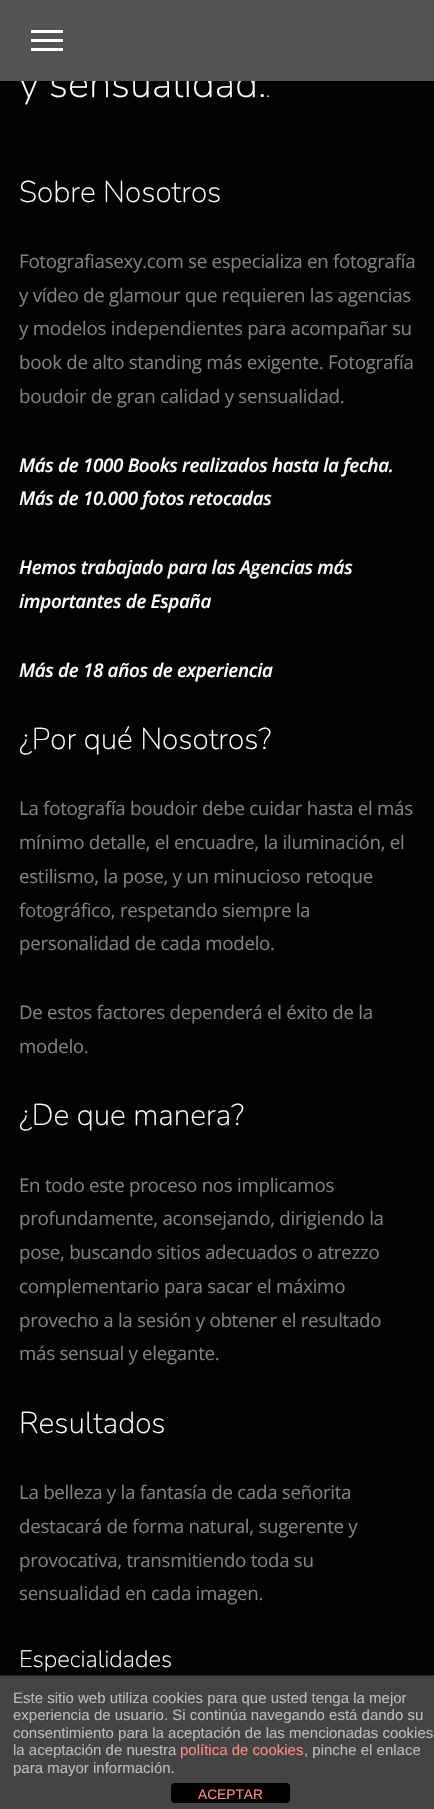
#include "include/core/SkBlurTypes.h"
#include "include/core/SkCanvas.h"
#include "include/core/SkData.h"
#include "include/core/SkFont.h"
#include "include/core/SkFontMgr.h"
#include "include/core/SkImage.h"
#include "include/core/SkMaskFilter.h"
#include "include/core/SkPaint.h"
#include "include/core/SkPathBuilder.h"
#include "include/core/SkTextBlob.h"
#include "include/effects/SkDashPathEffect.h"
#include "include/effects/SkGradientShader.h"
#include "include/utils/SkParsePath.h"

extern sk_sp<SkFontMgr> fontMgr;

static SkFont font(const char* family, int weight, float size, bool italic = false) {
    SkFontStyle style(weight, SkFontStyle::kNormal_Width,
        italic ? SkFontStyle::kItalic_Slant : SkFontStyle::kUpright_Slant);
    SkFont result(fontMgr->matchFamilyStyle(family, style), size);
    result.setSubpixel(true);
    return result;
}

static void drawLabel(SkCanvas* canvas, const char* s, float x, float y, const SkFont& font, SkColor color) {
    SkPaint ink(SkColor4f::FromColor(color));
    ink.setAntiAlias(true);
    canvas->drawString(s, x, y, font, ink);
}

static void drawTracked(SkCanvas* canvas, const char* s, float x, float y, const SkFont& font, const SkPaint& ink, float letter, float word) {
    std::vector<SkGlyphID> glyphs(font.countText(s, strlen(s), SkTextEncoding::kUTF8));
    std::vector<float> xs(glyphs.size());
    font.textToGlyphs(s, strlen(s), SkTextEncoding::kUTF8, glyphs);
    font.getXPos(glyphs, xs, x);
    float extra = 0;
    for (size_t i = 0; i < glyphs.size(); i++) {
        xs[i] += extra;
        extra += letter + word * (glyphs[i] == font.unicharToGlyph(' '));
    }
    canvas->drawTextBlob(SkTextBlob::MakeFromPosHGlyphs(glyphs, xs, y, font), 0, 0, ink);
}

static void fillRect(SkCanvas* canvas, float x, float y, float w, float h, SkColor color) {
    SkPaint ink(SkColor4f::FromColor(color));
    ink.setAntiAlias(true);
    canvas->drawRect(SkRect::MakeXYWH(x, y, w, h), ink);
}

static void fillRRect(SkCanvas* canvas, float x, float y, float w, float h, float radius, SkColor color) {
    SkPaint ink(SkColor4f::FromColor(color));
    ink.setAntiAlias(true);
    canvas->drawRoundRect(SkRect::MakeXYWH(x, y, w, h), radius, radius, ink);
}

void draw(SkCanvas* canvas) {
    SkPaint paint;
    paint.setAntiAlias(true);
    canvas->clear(0xFF020202);
    SkFont font1 = font("Nunito", 200, 40);
    drawLabel(canvas, "y sensualidad.", 19, 97, font1, 0xFFFFFFFF);
    fillRect(canvas, 0, 0, 434, 81, 0xFF545454);
    fillRect(canvas, 31, 39, 32, 3, 0xFFFFFFFF);
    fillRect(canvas, 31, 30, 32, 3, 0xFFFFFFFF);
    fillRect(canvas, 31, 48, 32, 3, 0xFFFFFFFF);
    SkFont font2 = font("Nunito", 200, 20);
    drawLabel(canvas, ".", 266, 97, font2, 0xFFFFFFFF);
    SkFont font3 = font("Nunito", 200, 30);
    drawLabel(canvas, "Sobre Nosotros", 19, 202, font3, 0xFFFFFFFF);
    SkFont font4 = font("Open Sans", 400, 18.75f);
    paint.setColor(0xFF818181);
    drawTracked(canvas, "Fotografiasexy.com se especializa en fotografía", 19, 268, font4, paint, -0.3f, 0);
    drawTracked(canvas, "y vídeo de glamour que requieren las agencias", 19, 302, font4, paint, -0.3f, 0);
    drawTracked(canvas, "y modelos independientes para acompañar su", 19, 335, font4, paint, -0.3f, 0);
    drawTracked(canvas, "book de alto standing más exigente. Fotografía", 19, 369, font4, paint, -0.3f, 0);
    drawTracked(canvas, "boudoir de gran calidad y sensualidad.", 19, 403, font4, paint, -0.3f, 0);
    SkFont font5 = font("Open Sans", 600, 18.75f, true);
    paint.setColor(0xFFFFFFFF);
    drawTracked(canvas, "Más de 1000 Books realizados hasta la fecha.", 19, 472, font5, paint, -0.3f, 0);
    drawTracked(canvas, "Más de 10.000 fotos retocadas", 19, 505, font5, paint, -0.3f, 0);
    drawTracked(canvas, "Hemos trabajado para las Agencias más", 19, 574, font5, paint, -0.3f, 0);
    drawTracked(canvas, "importantes de España", 19, 608, font5, paint, -0.3f, 0);
    drawTracked(canvas, "Más de 18 años de experiencia", 19, 677, font5, paint, -0.3f, 0);
    drawLabel(canvas, "¿Por qué Nosotros?", 19, 749, font3, 0xFFFFFFFF);
    paint.setColor(0xFF818181);
    drawTracked(canvas, "La fotografía boudoir debe cuidar hasta el más", 19, 815, font4, paint, -0.3f, 0);
    drawTracked(canvas, "mínimo detalle, el encuadre, la iluminación, el", 19, 849, font4, paint, -0.3f, 0);
    drawTracked(canvas, "estilismo, la pose, y un minucioso retoque", 19, 883, font4, paint, -0.3f, 0);
    drawTracked(canvas, "fotográfico, respetando siempre la", 19, 917, font4, paint, -0.3f, 0);
    drawTracked(canvas, "personalidad de cada modelo.", 19, 950, font4, paint, -0.3f, 0);
    drawTracked(canvas, "De estos factores dependerá el éxito de la", 19, 1019, font4, paint, -0.3f, 0);
    drawTracked(canvas, "modelo.", 19, 1053, font4, paint, -0.3f, 0);
    drawLabel(canvas, "¿De que manera?", 19, 1125, font3, 0xFFFFFFFF);
    drawTracked(canvas, "En todo este proceso nos implicamos", 19, 1192, font4, paint, -0.3f, 0);
    drawTracked(canvas, "profundamente, aconsejando, dirigiendo la", 19, 1225, font4, paint, -0.3f, 0);
    drawTracked(canvas, "pose, buscando sitios adecuados o atrezzo", 19, 1259, font4, paint, -0.3f, 0);
    drawTracked(canvas, "complementario para sacar el máximo", 19, 1293, font4, paint, -0.3f, 0);
    drawTracked(canvas, "provecho a la sesión y obtener el resultado", 19, 1327, font4, paint, -0.3f, 0);
    drawTracked(canvas, "más sensual y elegante.", 19, 1360, font4, paint, -0.3f, 0);
    drawLabel(canvas, "Resultados", 19, 1433, font3, 0xFFFFFFFF);
    drawTracked(canvas, "La belleza y la fantasía de cada señorita", 19, 1499, font4, paint, -0.3f, 0);
    drawTracked(canvas, "destacará de forma natural, sugerente y", 19, 1533, font4, paint, -0.3f, 0);
    drawTracked(canvas, "provocativa, transmitiendo toda su", 19, 1567, font4, paint, -0.3f, 0);
    drawTracked(canvas, "sensualidad en cada imagen.", 19, 1600, font4, paint, -0.3f, 0);
    SkFont font6 = font("Nunito", 200, 23.75f);
    drawLabel(canvas, "Especialidades", 19, 1667, font6, 0xFFFFFFFF);
    fillRect(canvas, 0, 1676, 434, 133, 0xFF444444);
    fillRect(canvas, 0, 1675, 434, 1, 0xFF222222);
    SkFont font7 = font("Liberation Sans", 400, 15);
    drawLabel(canvas, "Este sitio web utiliza cookies para que usted tenga la mejor", 13, 1703, font7, 0xFFBBBBBB);
    drawLabel(canvas, "experiencia de usuario. Si continúa navegando está dando su", 13, 1720, font7, 0xFFBBBBBB);
    drawLabel(canvas, "consentimiento para la aceptación de las mencionadas cookies", 13, 1738, font7, 0xFFBBBBBB);
    drawLabel(canvas, "la aceptación de nuestra", 13, 1755, font7, 0xFFBBBBBB);
    drawLabel(canvas, "política de cookies", 180, 1755, font7, 0xFFFF8888);
    drawLabel(canvas, ", pinche el enlace", 304, 1755, font7, 0xFFBBBBBB);
    drawLabel(canvas, "para mayor información.", 13, 1773, font7, 0xFFBBBBBB);
    fillRRect(canvas, 171, 1783, 119, 20, 4, 0xFF000000);
    SkFont font8 = font("Liberation Sans", 400, 13.75f);
    drawLabel(canvas, "ACEPTAR", 198, 1799, font8, 0xFFFF8888);
}
